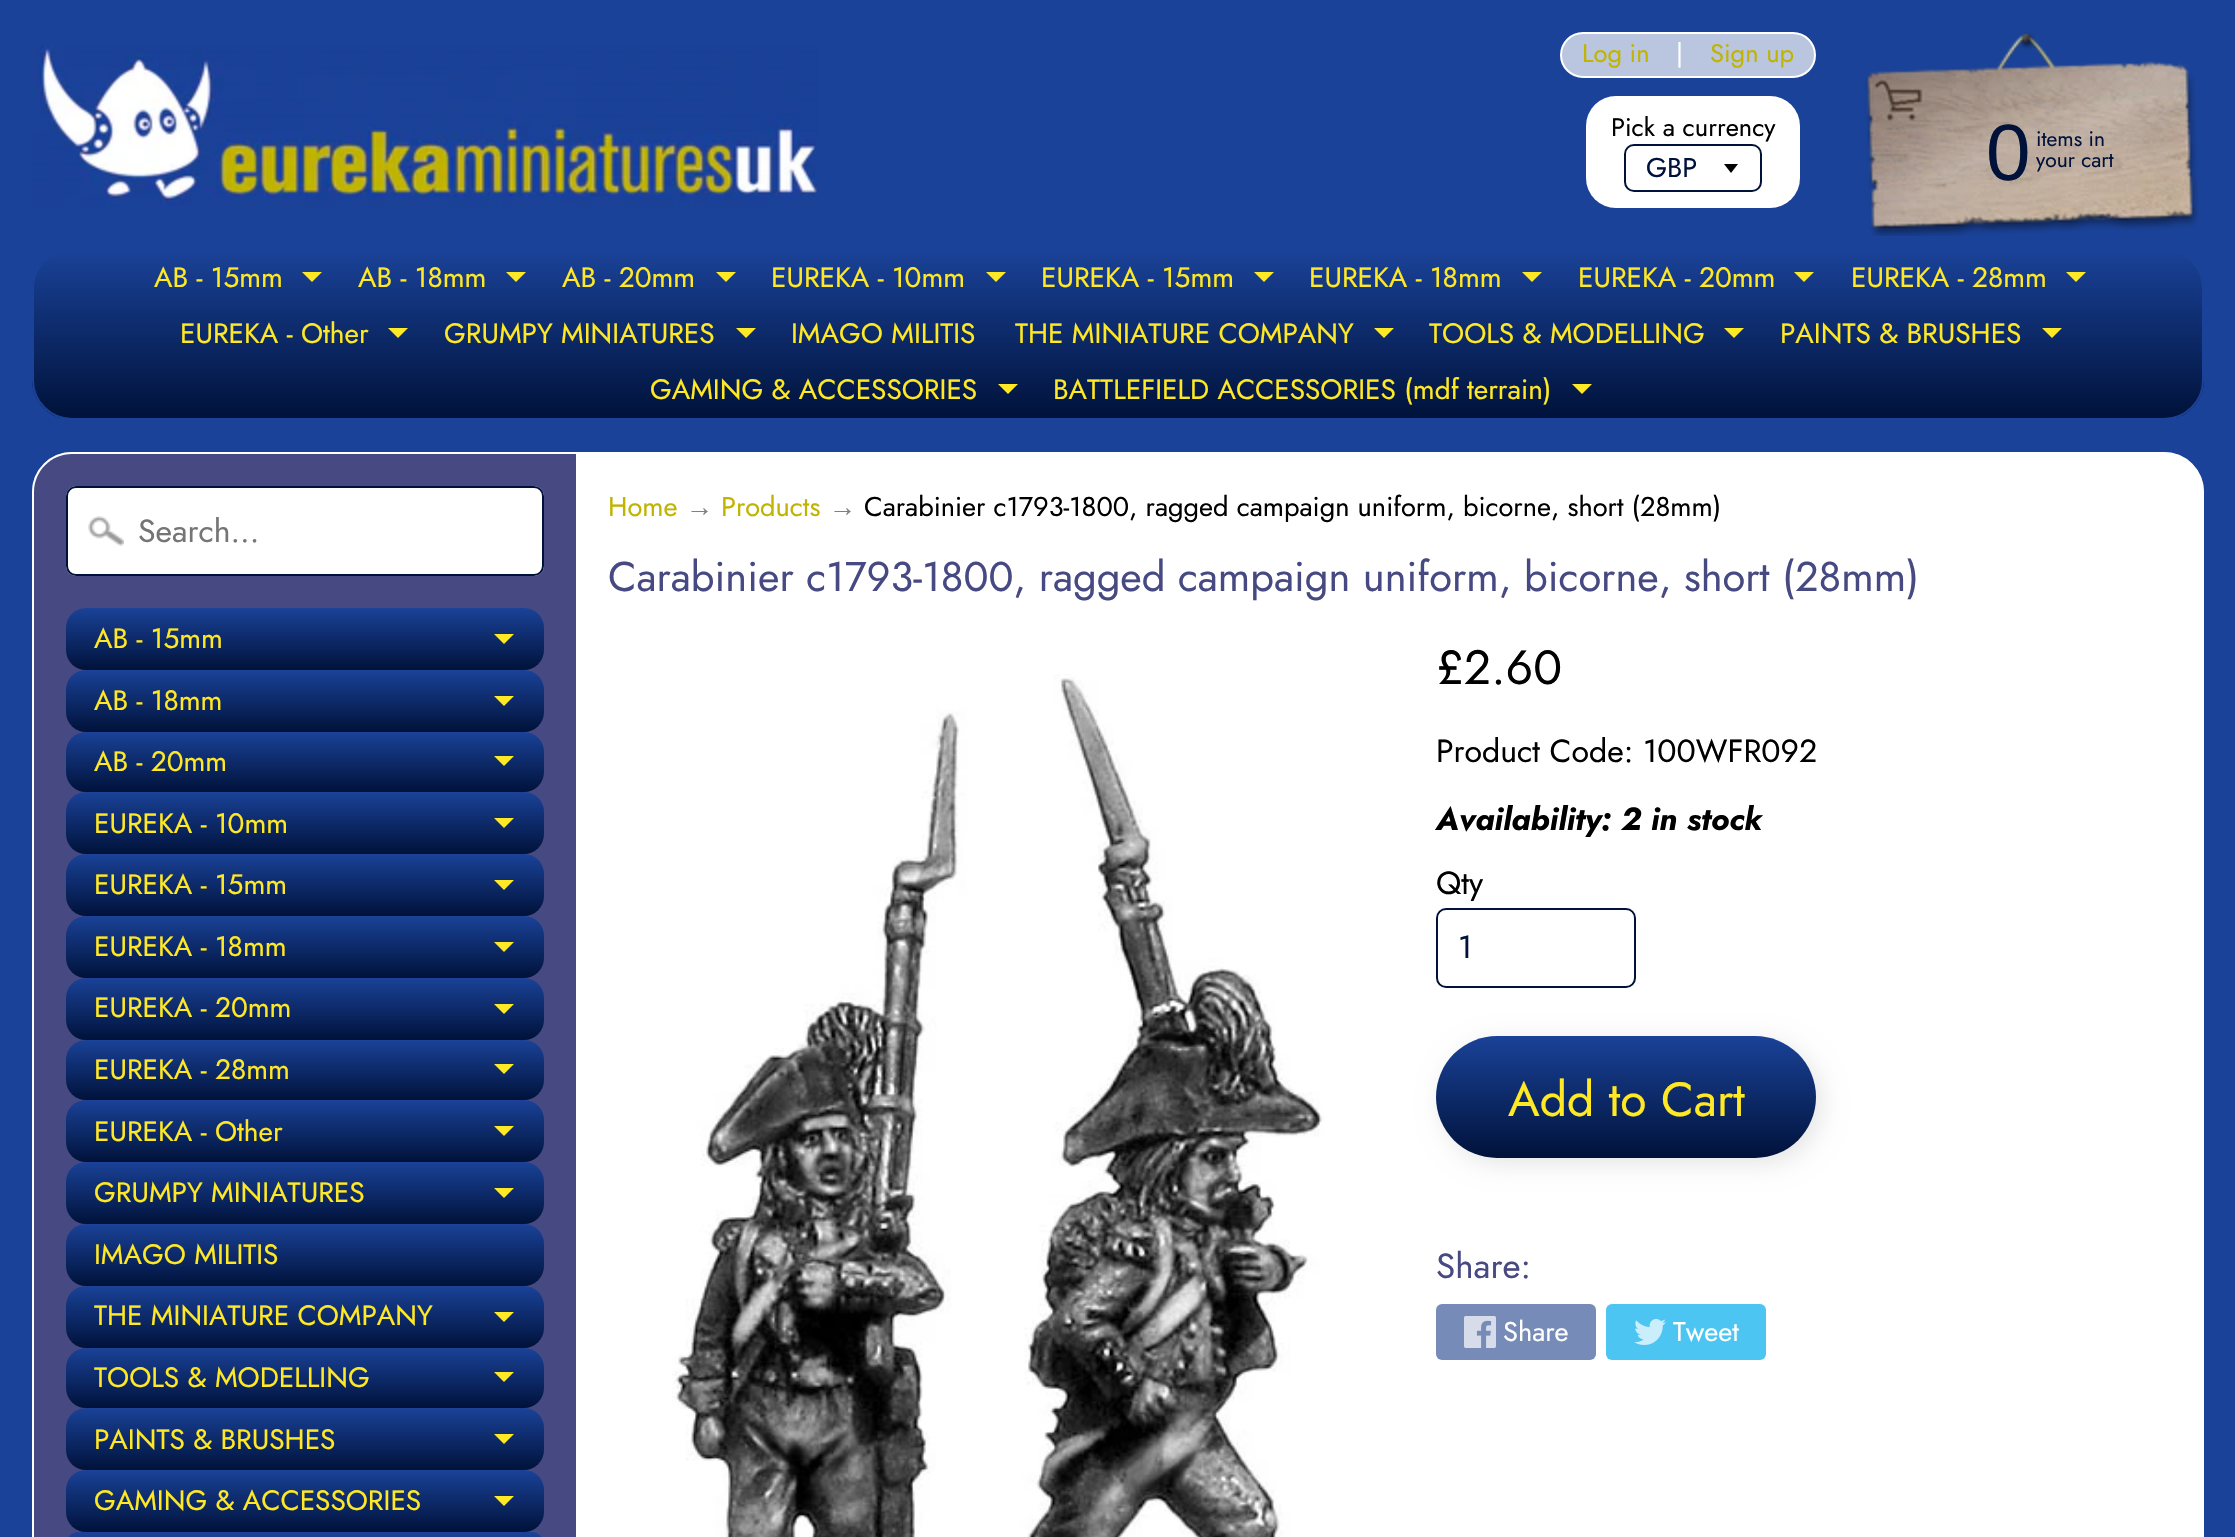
#include "include/core/SkBlurTypes.h"
#include "include/core/SkCanvas.h"
#include "include/core/SkData.h"
#include "include/core/SkFont.h"
#include "include/core/SkFontMgr.h"
#include "include/core/SkImage.h"
#include "include/core/SkMaskFilter.h"
#include "include/core/SkPaint.h"
#include "include/core/SkPathBuilder.h"
#include "include/core/SkTextBlob.h"
#include "include/effects/SkDashPathEffect.h"
#include "include/effects/SkGradientShader.h"
#include "include/utils/SkParsePath.h"

extern sk_sp<SkFontMgr> fontMgr;

static SkFont font(const char* family, int weight, float size, bool italic = false) {
    SkFontStyle style(weight, SkFontStyle::kNormal_Width,
        italic ? SkFontStyle::kItalic_Slant : SkFontStyle::kUpright_Slant);
    SkFont result(fontMgr->matchFamilyStyle(family, style), size);
    result.setSubpixel(true);
    return result;
}

static void drawLabel(SkCanvas* canvas, const char* s, float x, float y, const SkFont& font, SkColor color) {
    SkPaint ink(SkColor4f::FromColor(color));
    ink.setAntiAlias(true);
    canvas->drawString(s, x, y, font, ink);
}

static void fillRRect(SkCanvas* canvas, float x, float y, float w, float h, float radius, SkColor color) {
    SkPaint ink(SkColor4f::FromColor(color));
    ink.setAntiAlias(true);
    canvas->drawRoundRect(SkRect::MakeXYWH(x, y, w, h), radius, radius, ink);
}

static void drawPhoto(SkCanvas* canvas, const char* path, float x, float y, float w, float h) {
    auto image = SkImages::DeferredFromEncodedData(SkData::MakeFromFileName(path));
    canvas->drawImageRect(image, SkRect::MakeXYWH(x, y, w, h), SkSamplingOptions());
}

static SkPath parsePath(const char* data, bool evenOdd = false) {
    SkPath result = *SkParsePath::FromSVGString(data);
    if (evenOdd) result.setFillType(SkPathFillType::kEvenOdd);
    return result;
}

void draw(SkCanvas* canvas) {
    SkPaint paint;
    paint.setAntiAlias(true);
    canvas->clear(0xFF1A4298);
    drawPhoto(canvas, "assets/img1.png", 32, 45, 786, 162);
    paint.setColor(0xFFBAC6E0);
    canvas->drawRoundRect(SkRect::MakeXYWH(1561, 33, 254, 44), 22, 22, paint);
    paint.setStroke(true);
    paint.setStrokeWidth(2);
    paint.setColor(0xFFFFFFFF);
    canvas->drawRoundRect(SkRect::MakeXYWH(1561, 33, 254, 44), 22, 22, paint);
    SkFont font1 = font("Jost", 400, 25.5f);
    drawLabel(canvas, "Log in", 1582, 62, font1, 0xFFC1B400);
    drawLabel(canvas, "|", 1676, 62, font1, 0xFFFFFFFF);
    drawLabel(canvas, "Sign up", 1710, 62, font1, 0xFFC1B400);
    drawPhoto(canvas, "assets/img2.png", 1864, 32, 335, 204);
    SkFont font2 = font("Liberation Sans", 400, 80);
    drawLabel(canvas, "0", 1986, 180, font2, 0xFF00123A);
    SkFont font3 = font("Jost", 400, 21);
    drawLabel(canvas, "items in", 2036, 146, font3, 0xFF00123A);
    drawLabel(canvas, "your cart", 2036, 167, font3, 0xFF00123A);
    canvas->save();
    canvas->clipPath(parsePath("M72 248H2164C2186 248 2204 266 2204 288V380C2204 402 2186 420 2164 420H72C50 420 32 402 32 380V288C32 266 50 248 72 248Z"), true);
    paint.setStroke(false);
    {
        const SkColor colors[] = {0xFF1A4298, 0xFF00123A};
        const float stops[] = {0, 1};
        const SkPoint ends[] = {{1118, 250}, {1118, 418}};
        paint.setShader(SkGradientShader::MakeLinear(ends, colors, stops, 2, SkTileMode::kClamp));
        paint.setAlpha(255);
    }
    canvas->drawRect(SkRect::MakeXYWH(32, 250, 2172, 168), paint);
    canvas->restore();
    paint.setStroke(true);
    paint.setShader(nullptr);
    paint.setColor(0xFF1A4298);
    canvas->drawRoundRect(SkRect::MakeXYWH(33, 249, 2170, 170), 39, 39, paint);
    SkFont font4 = font("Jost", 400, 28);
    drawLabel(canvas, "AB - 15mm", 154, 287, font4, 0xFFFFE824);
    paint.setStroke(false);
    paint.setColor(0xFFFFE824);
    canvas->drawPath(parsePath("M302 272H322L312 282Z"), paint);
    drawLabel(canvas, "AB - 18mm", 358, 287, font4, 0xFFFFE824);
    canvas->drawPath(parsePath("M506 272H526L516 282Z"), paint);
    drawLabel(canvas, "AB - 20mm", 562, 287, font4, 0xFFFFE824);
    canvas->drawPath(parsePath("M716 272H736L726 282Z"), paint);
    drawLabel(canvas, "EUREKA - 10mm", 771, 287, font4, 0xFFFFE824);
    canvas->drawPath(parsePath("M986 272H1006L996 282Z"), paint);
    drawLabel(canvas, "EUREKA - 15mm", 1041, 287, font4, 0xFFFFE824);
    canvas->drawPath(parsePath("M1254 272H1274L1264 282Z"), paint);
    drawLabel(canvas, "EUREKA - 18mm", 1309, 287, font4, 0xFFFFE824);
    canvas->drawPath(parsePath("M1522 272H1542L1532 282Z"), paint);
    drawLabel(canvas, "EUREKA - 20mm", 1578, 287, font4, 0xFFFFE824);
    canvas->drawPath(parsePath("M1794 272H1814L1804 282Z"), paint);
    drawLabel(canvas, "EUREKA - 28mm", 1851, 287, font4, 0xFFFFE824);
    canvas->drawPath(parsePath("M2066 272H2086L2076 282Z"), paint);
    drawLabel(canvas, "EUREKA - Other", 180, 343, font4, 0xFFFFE824);
    canvas->drawPath(parsePath("M388 328H408L398 338Z"), paint);
    drawLabel(canvas, "GRUMPY MINIATURES", 444, 343, font4, 0xFFFFE824);
    canvas->drawPath(parsePath("M736 328H756L746 338Z"), paint);
    drawLabel(canvas, "IMAGO MILITIS", 791, 343, font4, 0xFFFFE824);
    drawLabel(canvas, "THE MINIATURE COMPANY", 1015, 343, font4, 0xFFFFE824);
    canvas->drawPath(parsePath("M1374 328H1394L1384 338Z"), paint);
    drawLabel(canvas, "TOOLS & MODELLING", 1429, 343, font4, 0xFFFFE824);
    canvas->drawPath(parsePath("M1724 328H1744L1734 338Z"), paint);
    drawLabel(canvas, "PAINTS & BRUSHES", 1780, 343, font4, 0xFFFFE824);
    canvas->drawPath(parsePath("M2042 328H2062L2052 338Z"), paint);
    drawLabel(canvas, "GAMING & ACCESSORIES", 650, 399, font4, 0xFFFFE824);
    canvas->drawPath(parsePath("M998 384H1018L1008 394Z"), paint);
    drawLabel(canvas, "BATTLEFIELD ACCESSORIES (mdf terrain)", 1053, 399, font4, 0xFFFFE824);
    canvas->drawPath(parsePath("M1572 384H1592L1582 394Z"), paint);
    fillRRect(canvas, 1586, 96, 214, 112, 30, 0xFFFFFFFF);
    drawLabel(canvas, "Pick a currency", 1611, 136, font1, 0xFF000000);
    paint.setColor(0xFF000000);
    canvas->drawPath(parsePath("M1724 164L1731 173L1738 164Z"), paint);
    paint.setStroke(true);
    paint.setColor(0xFF00123A);
    canvas->drawRoundRect(SkRect::MakeXYWH(1625, 145, 136, 46), 9, 9, paint);
    SkFont font5 = font("Jost", 400, 27.2f);
    drawLabel(canvas, "GBP", 1646, 177, font5, 0xFF00123A);
    fillRRect(canvas, 32, 452, 2172, 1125, 40, 0xFFFFFFFF);
    paint.setColor(0xB3FFFFFF);
    canvas->drawRoundRect(SkRect::MakeXYWH(33, 453, 2170, 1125), 39, 39, paint);
    paint.setStroke(false);
    paint.setColor(0xFF474982);
    canvas->drawPath(parsePath("M72 454H576V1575H72C51 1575 34 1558 34 1537V492C34 471 51 454 72 454Z"), paint);
    fillRRect(canvas, 66, 486, 478, 90, 10, 0xFFFFFFFF);
    drawPhoto(canvas, "assets/img3.png", 88, 516, 36, 30);
    paint.setStroke(true);
    paint.setColor(0xFF00123A);
    canvas->drawRoundRect(SkRect::MakeXYWH(67, 487, 476, 88), 9, 9, paint);
    SkFont font6 = font("Jost", 400, 32);
    drawLabel(canvas, "Search...", 138, 542, font6, 0xFF757575);
    paint.setStroke(false);
    {
        const SkColor colors[] = {0xFF1A4298, 0xFF00123A};
        const float stops[] = {0, 1};
        const SkPoint ends[] = {{305, 608}, {305, 670}};
        paint.setShader(SkGradientShader::MakeLinear(ends, colors, stops, 2, SkTileMode::kClamp));
        paint.setAlpha(255);
    }
    canvas->drawRoundRect(SkRect::MakeXYWH(66, 608, 478, 62), 20, 20, paint);
    drawLabel(canvas, "AB - 15mm", 94, 648, font4, 0xFFFFE824);
    paint.setShader(nullptr);
    paint.setColor(0xFFFFE824);
    canvas->drawPath(parsePath("M494 634H514L504 644Z"), paint);
    {
        const SkColor colors[] = {0xFF1A4298, 0xFF00123A};
        const float stops[] = {0, 1};
        const SkPoint ends[] = {{305, 670}, {305, 732}};
        paint.setShader(SkGradientShader::MakeLinear(ends, colors, stops, 2, SkTileMode::kClamp));
        paint.setAlpha(255);
    }
    canvas->drawRoundRect(SkRect::MakeXYWH(66, 670, 478, 62), 20, 20, paint);
    drawLabel(canvas, "AB - 18mm", 94, 710, font4, 0xFFFFE824);
    paint.setShader(nullptr);
    paint.setColor(0xFFFFE824);
    canvas->drawPath(parsePath("M494 696H514L504 706Z"), paint);
    {
        const SkColor colors[] = {0xFF1A4298, 0xFF00123A};
        const float stops[] = {0, 1};
        const SkPoint ends[] = {{305, 732}, {305, 792}};
        paint.setShader(SkGradientShader::MakeLinear(ends, colors, stops, 2, SkTileMode::kClamp));
        paint.setAlpha(255);
    }
    canvas->drawRoundRect(SkRect::MakeXYWH(66, 732, 478, 60), 20, 20, paint);
    drawLabel(canvas, "AB - 20mm", 94, 771, font4, 0xFFFFE824);
    paint.setShader(nullptr);
    paint.setColor(0xFFFFE824);
    canvas->drawPath(parsePath("M494 756H514L504 766Z"), paint);
    {
        const SkColor colors[] = {0xFF1A4298, 0xFF00123A};
        const float stops[] = {0, 1};
        const SkPoint ends[] = {{305, 792}, {305, 854}};
        paint.setShader(SkGradientShader::MakeLinear(ends, colors, stops, 2, SkTileMode::kClamp));
        paint.setAlpha(255);
    }
    canvas->drawRoundRect(SkRect::MakeXYWH(66, 792, 478, 62), 20, 20, paint);
    drawLabel(canvas, "EUREKA - 10mm", 94, 833, font4, 0xFFFFE824);
    paint.setShader(nullptr);
    paint.setColor(0xFFFFE824);
    canvas->drawPath(parsePath("M494 818H514L504 828Z"), paint);
    {
        const SkColor colors[] = {0xFF1A4298, 0xFF00123A};
        const float stops[] = {0, 1};
        const SkPoint ends[] = {{305, 854}, {305, 916}};
        paint.setShader(SkGradientShader::MakeLinear(ends, colors, stops, 2, SkTileMode::kClamp));
        paint.setAlpha(255);
    }
    canvas->drawRoundRect(SkRect::MakeXYWH(66, 854, 478, 62), 20, 20, paint);
    drawLabel(canvas, "EUREKA - 15mm", 94, 894, font4, 0xFFFFE824);
    paint.setShader(nullptr);
    paint.setColor(0xFFFFE824);
    canvas->drawPath(parsePath("M494 880H514L504 890Z"), paint);
    {
        const SkColor colors[] = {0xFF1A4298, 0xFF00123A};
        const float stops[] = {0, 1};
        const SkPoint ends[] = {{305, 916}, {305, 978}};
        paint.setShader(SkGradientShader::MakeLinear(ends, colors, stops, 2, SkTileMode::kClamp));
        paint.setAlpha(255);
    }
    canvas->drawRoundRect(SkRect::MakeXYWH(66, 916, 478, 62), 20, 20, paint);
    drawLabel(canvas, "EUREKA - 18mm", 94, 956, font4, 0xFFFFE824);
    paint.setShader(nullptr);
    paint.setColor(0xFFFFE824);
    canvas->drawPath(parsePath("M494 942H514L504 952Z"), paint);
    {
        const SkColor colors[] = {0xFF1A4298, 0xFF00123A};
        const float stops[] = {0, 1};
        const SkPoint ends[] = {{305, 978}, {305, 1040}};
        paint.setShader(SkGradientShader::MakeLinear(ends, colors, stops, 2, SkTileMode::kClamp));
        paint.setAlpha(255);
    }
    canvas->drawRoundRect(SkRect::MakeXYWH(66, 978, 478, 62), 20, 20, paint);
    drawLabel(canvas, "EUREKA - 20mm", 94, 1017, font4, 0xFFFFE824);
    paint.setShader(nullptr);
    paint.setColor(0xFFFFE824);
    canvas->drawPath(parsePath("M494 1004H514L504 1014Z"), paint);
    {
        const SkColor colors[] = {0xFF1A4298, 0xFF00123A};
        const float stops[] = {0, 1};
        const SkPoint ends[] = {{305, 1040}, {305, 1100}};
        paint.setShader(SkGradientShader::MakeLinear(ends, colors, stops, 2, SkTileMode::kClamp));
        paint.setAlpha(255);
    }
    canvas->drawRoundRect(SkRect::MakeXYWH(66, 1040, 478, 60), 20, 20, paint);
    drawLabel(canvas, "EUREKA - 28mm", 94, 1079, font4, 0xFFFFE824);
    paint.setShader(nullptr);
    paint.setColor(0xFFFFE824);
    canvas->drawPath(parsePath("M494 1064H514L504 1074Z"), paint);
    {
        const SkColor colors[] = {0xFF1A4298, 0xFF00123A};
        const float stops[] = {0, 1};
        const SkPoint ends[] = {{305, 1100}, {305, 1162}};
        paint.setShader(SkGradientShader::MakeLinear(ends, colors, stops, 2, SkTileMode::kClamp));
        paint.setAlpha(255);
    }
    canvas->drawRoundRect(SkRect::MakeXYWH(66, 1100, 478, 62), 20, 20, paint);
    drawLabel(canvas, "EUREKA - Other", 94, 1141, font4, 0xFFFFE824);
    paint.setShader(nullptr);
    paint.setColor(0xFFFFE824);
    canvas->drawPath(parsePath("M494 1126H514L504 1136Z"), paint);
    {
        const SkColor colors[] = {0xFF1A4298, 0xFF00123A};
        const float stops[] = {0, 1};
        const SkPoint ends[] = {{305, 1162}, {305, 1224}};
        paint.setShader(SkGradientShader::MakeLinear(ends, colors, stops, 2, SkTileMode::kClamp));
        paint.setAlpha(255);
    }
    canvas->drawRoundRect(SkRect::MakeXYWH(66, 1162, 478, 62), 20, 20, paint);
    drawLabel(canvas, "GRUMPY MINIATURES", 94, 1202, font4, 0xFFFFE824);
    paint.setShader(nullptr);
    paint.setColor(0xFFFFE824);
    canvas->drawPath(parsePath("M494 1188H514L504 1198Z"), paint);
    {
        const SkColor colors[] = {0xFF1A4298, 0xFF00123A};
        const float stops[] = {0, 1};
        const SkPoint ends[] = {{305, 1224}, {305, 1286}};
        paint.setShader(SkGradientShader::MakeLinear(ends, colors, stops, 2, SkTileMode::kClamp));
        paint.setAlpha(255);
    }
    canvas->drawRoundRect(SkRect::MakeXYWH(66, 1224, 478, 62), 20, 20, paint);
    drawLabel(canvas, "IMAGO MILITIS", 94, 1264, font4, 0xFFFFE824);
    {
        const SkColor colors[] = {0xFF1A4298, 0xFF00123A};
        const float stops[] = {0, 1};
        const SkPoint ends[] = {{305, 1286}, {305, 1348}};
        paint.setShader(SkGradientShader::MakeLinear(ends, colors, stops, 2, SkTileMode::kClamp));
        paint.setAlpha(255);
    }
    canvas->drawRoundRect(SkRect::MakeXYWH(66, 1286, 478, 62), 20, 20, paint);
    drawLabel(canvas, "THE MINIATURE COMPANY", 94, 1325, font4, 0xFFFFE824);
    paint.setShader(nullptr);
    paint.setColor(0xFFFFE824);
    canvas->drawPath(parsePath("M494 1312H514L504 1322Z"), paint);
    {
        const SkColor colors[] = {0xFF1A4298, 0xFF00123A};
        const float stops[] = {0, 1};
        const SkPoint ends[] = {{305, 1348}, {305, 1408}};
        paint.setShader(SkGradientShader::MakeLinear(ends, colors, stops, 2, SkTileMode::kClamp));
        paint.setAlpha(255);
    }
    canvas->drawRoundRect(SkRect::MakeXYWH(66, 1348, 478, 60), 20, 20, paint);
    drawLabel(canvas, "TOOLS & MODELLING", 94, 1387, font4, 0xFFFFE824);
    paint.setShader(nullptr);
    paint.setColor(0xFFFFE824);
    canvas->drawPath(parsePath("M494 1372H514L504 1382Z"), paint);
    {
        const SkColor colors[] = {0xFF1A4298, 0xFF00123A};
        const float stops[] = {0, 1};
        const SkPoint ends[] = {{305, 1408}, {305, 1470}};
        paint.setShader(SkGradientShader::MakeLinear(ends, colors, stops, 2, SkTileMode::kClamp));
        paint.setAlpha(255);
    }
    canvas->drawRoundRect(SkRect::MakeXYWH(66, 1408, 478, 62), 20, 20, paint);
    drawLabel(canvas, "PAINTS & BRUSHES", 94, 1449, font4, 0xFFFFE824);
    paint.setShader(nullptr);
    paint.setColor(0xFFFFE824);
    canvas->drawPath(parsePath("M494 1434H514L504 1444Z"), paint);
    {
        const SkColor colors[] = {0xFF1A4298, 0xFF00123A};
        const float stops[] = {0, 1};
        const SkPoint ends[] = {{305, 1470}, {305, 1532}};
        paint.setShader(SkGradientShader::MakeLinear(ends, colors, stops, 2, SkTileMode::kClamp));
        paint.setAlpha(255);
    }
    canvas->drawRoundRect(SkRect::MakeXYWH(66, 1470, 478, 62), 20, 20, paint);
    drawLabel(canvas, "GAMING & ACCESSORIES", 94, 1510, font4, 0xFFFFE824);
    paint.setShader(nullptr);
    paint.setColor(0xFFFFE824);
    canvas->drawPath(parsePath("M494 1496H514L504 1506Z"), paint);
    {
        const SkColor colors[] = {0xFF1A4298, 0xFF00123A};
        const float stops[] = {0, 1};
        const SkPoint ends[] = {{305, 1532}, {305, 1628}};
        paint.setShader(SkGradientShader::MakeLinear(ends, colors, stops, 2, SkTileMode::kClamp));
        paint.setAlpha(255);
    }
    canvas->drawRoundRect(SkRect::MakeXYWH(66, 1532, 478, 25), 20, 20, paint);
    drawLabel(canvas, "Home", 608, 516, font5, 0xFFC1B400);
    SkFont font7 = font("Liberation Sans", 400, 27.2f);
    drawLabel(canvas, "→", 686, 516, font7, 0xFF808080);
    drawLabel(canvas, "Products", 721, 516, font5, 0xFFC1B400);
    drawLabel(canvas, "→", 829, 516, font7, 0xFF808080);
    drawLabel(canvas, "Carabinier c1793-1800, ragged campaign uniform, bicorne, short (28mm)", 864, 516, font5, 0xFF000000);
    SkFont font8 = font("Jost", 400, 41.6f);
    drawLabel(canvas, "Carabinier c1793-1800, ragged campaign uniform, bicorne, short (28mm)", 608, 591, font8, 0xFF474982);
    drawPhoto(canvas, "assets/img4.png", 672, 674, 652, 863);
    SkFont font9 = font("Jost", 400, 48);
    drawLabel(canvas, "£2.60", 1436, 684, font9, 0xFF000000);
    drawLabel(canvas, "Product Code: 100WFR092", 1436, 762, font6, 0xFF000000);
    SkFont font10 = font("Jost", 700, 32, true);
    drawLabel(canvas, "Availability: 2 in stock", 1436, 830, font10, 0xFF000000);
    drawLabel(canvas, "Qty", 1436, 894, font6, 0xFF000000);
    paint.setStroke(true);
    paint.setShader(nullptr);
    paint.setColor(0xFF00123A);
    canvas->drawRoundRect(SkRect::MakeXYWH(1437, 909, 198, 78), 9, 9, paint);
    drawLabel(canvas, "1", 1458, 958, font6, 0xFF00123A);
    paint.setStroke(false);
    paint.setColor(0x1A000000);
    paint.setMaskFilter(SkMaskFilter::MakeBlur(kNormal_SkBlurStyle, 12));
    canvas->drawRoundRect(SkRect::MakeXYWH(1442, 1042, 380, 122), 61, 61, paint);
    paint.setMaskFilter(nullptr);
    {
        const SkColor colors[] = {0xFF1A4298, 0xFF00123A};
        const float stops[] = {0, 1};
        const SkPoint ends[] = {{1626, 1036}, {1626, 1158}};
        paint.setShader(SkGradientShader::MakeLinear(ends, colors, stops, 2, SkTileMode::kClamp));
        paint.setAlpha(255);
    }
    canvas->drawRoundRect(SkRect::MakeXYWH(1436, 1036, 380, 122), 61, 61, paint);
    drawLabel(canvas, "Add to Cart", 1508, 1116, font9, 0xFFFFE824);
    SkFont font11 = font("Jost", 400, 35);
    drawLabel(canvas, "Share:", 1436, 1278, font11, 0xFF474982);
    fillRRect(canvas, 1436, 1304, 160, 56, 6, 0xFF768BB7);
    drawPhoto(canvas, "assets/img5.png", 1464, 1316, 32, 32);
    drawLabel(canvas, "Share", 1503, 1341, font5, 0xFFFFFFFF);
    fillRRect(canvas, 1606, 1304, 160, 56, 6, 0xFF4DC5F2);
    drawPhoto(canvas, "assets/img6.png", 1634, 1319, 32, 26);
    drawLabel(canvas, "Tweet", 1673, 1341, font5, 0xFFFFFFFF);
}
